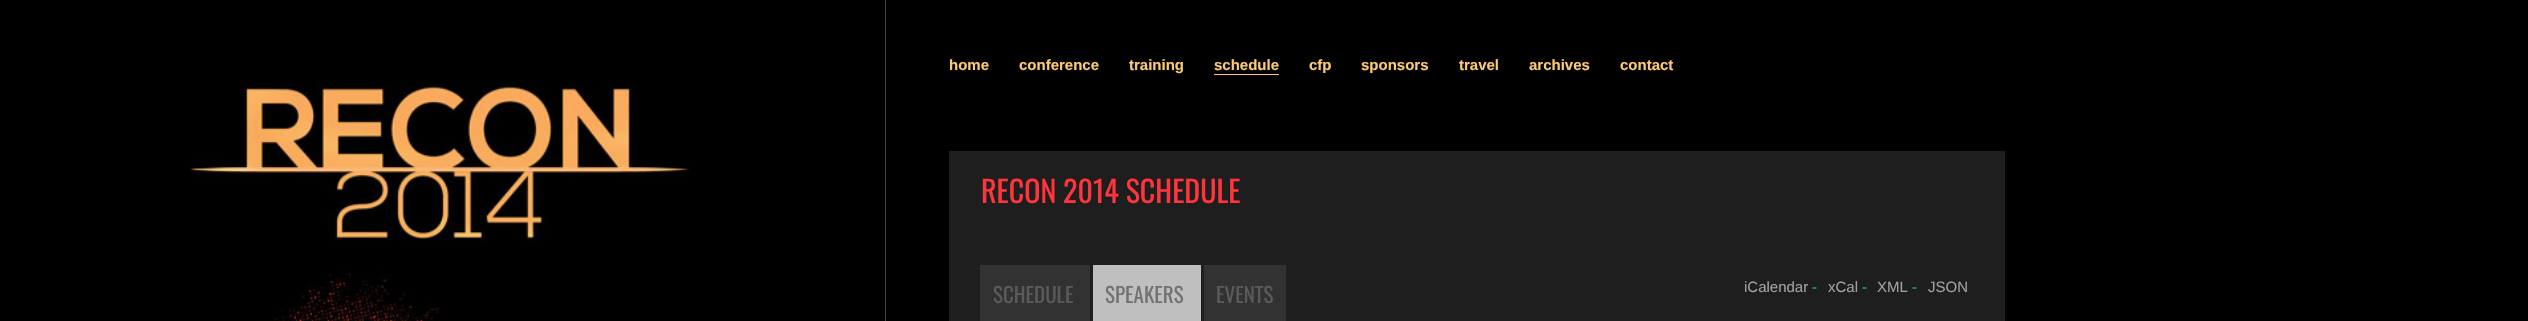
#include "include/core/SkBlurTypes.h"
#include "include/core/SkCanvas.h"
#include "include/core/SkData.h"
#include "include/core/SkFont.h"
#include "include/core/SkFontMgr.h"
#include "include/core/SkImage.h"
#include "include/core/SkMaskFilter.h"
#include "include/core/SkPaint.h"
#include "include/core/SkPathBuilder.h"
#include "include/core/SkTextBlob.h"
#include "include/effects/SkDashPathEffect.h"
#include "include/effects/SkGradientShader.h"
#include "include/utils/SkParsePath.h"

extern sk_sp<SkFontMgr> fontMgr;

static SkFont font(const char* family, int weight, float size, bool italic = false) {
    SkFontStyle style(weight, SkFontStyle::kNormal_Width,
        italic ? SkFontStyle::kItalic_Slant : SkFontStyle::kUpright_Slant);
    SkFont result(fontMgr->matchFamilyStyle(family, style), size);
    result.setSubpixel(true);
    return result;
}

static void drawLabel(SkCanvas* canvas, const char* s, float x, float y, const SkFont& font, SkColor color) {
    SkPaint ink(SkColor4f::FromColor(color));
    ink.setAntiAlias(true);
    canvas->drawString(s, x, y, font, ink);
}

static void fillRect(SkCanvas* canvas, float x, float y, float w, float h, SkColor color) {
    SkPaint ink(SkColor4f::FromColor(color));
    ink.setAntiAlias(true);
    canvas->drawRect(SkRect::MakeXYWH(x, y, w, h), ink);
}

static void drawPhoto(SkCanvas* canvas, const char* path, float x, float y, float w, float h) {
    auto image = SkImages::DeferredFromEncodedData(SkData::MakeFromFileName(path));
    canvas->drawImageRect(image, SkRect::MakeXYWH(x, y, w, h), SkSamplingOptions());
}

void draw(SkCanvas* canvas) {
    SkPaint paint;
    paint.setAntiAlias(true);
    canvas->clear(0xFF000000);
    drawPhoto(canvas, "assets/img1.png", 190, 81, 500, 240);
    fillRect(canvas, 885, 0, 1, 321, 0xFF444444);
    SkFont font1 = font("Liberation Sans", 700, 15);
    drawLabel(canvas, "home", 949, 70, font1, 0xFFFCCA75);
    drawLabel(canvas, "conference", 1019, 70, font1, 0xFFFCCA75);
    drawLabel(canvas, "training", 1129, 70, font1, 0xFFFCCA75);
    drawLabel(canvas, "schedule", 1214, 70, font1, 0xFFFCCA75);
    fillRect(canvas, 1214, 74, 65, 1, 0xFFFCCA75);
    drawLabel(canvas, "cfp", 1309, 70, font1, 0xFFFCCA75);
    drawLabel(canvas, "sponsors", 1361, 70, font1, 0xFFFCCA75);
    drawLabel(canvas, "travel", 1459, 70, font1, 0xFFFCCA75);
    drawLabel(canvas, "archives", 1529, 70, font1, 0xFFFCCA75);
    drawLabel(canvas, "contact", 1620, 70, font1, 0xFFFCCA75);
    fillRect(canvas, 949, 151, 1056, 170, 0xFF1E1E1E);
    SkFont font2 = font("Oswald", 400, 30);
    drawLabel(canvas, "RECON 2014 SCHEDULE", 981, 203, font2, 0xFFFF343C);
    fillRect(canvas, 980, 265, 110, 56, 0xFF323232);
    SkFont font3 = font("Oswald", 400, 21);
    drawLabel(canvas, "SCHEDULE", 993, 303, font3, 0xFF5A5A5A);
    fillRect(canvas, 1093, 265, 108, 56, 0xFFBFBFBF);
    drawLabel(canvas, "SPEAKERS", 1105, 303, font3, 0xFF727272);
    fillRect(canvas, 1204, 265, 82, 56, 0xFF323232);
    drawLabel(canvas, "EVENTS", 1216, 303, font3, 0xFF5A5A5A);
    SkFont font4 = font("Liberation Sans", 400, 15);
    drawLabel(canvas, "iCalendar", 1744, 292, font4, 0xFFA0A0A0);
    drawLabel(canvas, "-", 1812, 292, font4, 0xFF00BABC);
    drawLabel(canvas, "xCal", 1828, 292, font4, 0xFFA0A0A0);
    drawLabel(canvas, "-", 1862, 292, font4, 0xFF00BABC);
    drawLabel(canvas, "XML", 1877, 292, font4, 0xFFA0A0A0);
    drawLabel(canvas, "-", 1912, 292, font4, 0xFF00BABC);
    drawLabel(canvas, "JSON", 1928, 292, font4, 0xFFA0A0A0);
}
